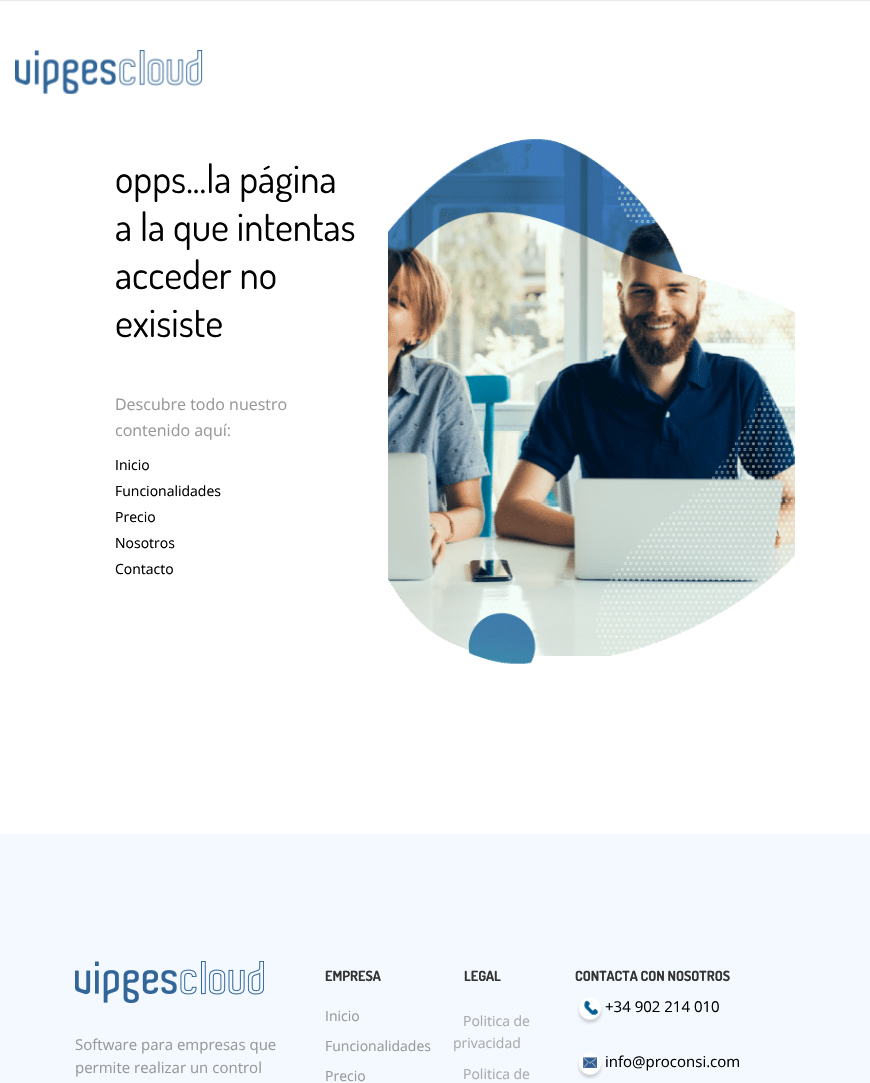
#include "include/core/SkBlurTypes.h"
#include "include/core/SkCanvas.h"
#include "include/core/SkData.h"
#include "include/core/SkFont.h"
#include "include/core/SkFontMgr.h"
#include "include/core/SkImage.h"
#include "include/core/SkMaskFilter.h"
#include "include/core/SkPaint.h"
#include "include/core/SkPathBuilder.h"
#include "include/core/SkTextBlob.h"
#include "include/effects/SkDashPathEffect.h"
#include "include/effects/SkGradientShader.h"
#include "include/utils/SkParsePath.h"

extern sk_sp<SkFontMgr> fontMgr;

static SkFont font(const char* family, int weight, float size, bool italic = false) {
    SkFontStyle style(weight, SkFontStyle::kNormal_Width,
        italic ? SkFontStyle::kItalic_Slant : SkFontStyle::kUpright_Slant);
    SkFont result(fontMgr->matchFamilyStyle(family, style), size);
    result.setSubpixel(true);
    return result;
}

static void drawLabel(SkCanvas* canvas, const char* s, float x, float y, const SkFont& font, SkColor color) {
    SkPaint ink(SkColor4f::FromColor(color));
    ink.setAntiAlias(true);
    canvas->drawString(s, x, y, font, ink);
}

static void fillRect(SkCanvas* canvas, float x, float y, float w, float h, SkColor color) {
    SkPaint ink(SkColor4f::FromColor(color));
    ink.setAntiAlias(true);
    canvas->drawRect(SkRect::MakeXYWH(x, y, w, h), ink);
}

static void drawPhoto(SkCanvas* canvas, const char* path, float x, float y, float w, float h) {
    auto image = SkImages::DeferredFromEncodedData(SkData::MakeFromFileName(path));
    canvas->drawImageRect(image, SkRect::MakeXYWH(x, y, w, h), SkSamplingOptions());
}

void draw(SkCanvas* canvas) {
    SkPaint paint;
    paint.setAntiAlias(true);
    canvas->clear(0xFFFFFFFF);
    fillRect(canvas, 0, 0, 870, 1, 0xFFEAEAEA);
    drawPhoto(canvas, "assets/img1.png", 15, 50, 188, 44);
    SkFont font1 = font("Dosis", 400, 39);
    drawLabel(canvas, "opps...la página", 115, 193, font1, 0xFF000000);
    drawLabel(canvas, "a la que intentas", 115, 241, font1, 0xFF000000);
    drawLabel(canvas, "acceder no", 115, 289, font1, 0xFF000000);
    drawLabel(canvas, "exisiste", 115, 337, font1, 0xFF000000);
    SkFont font2 = font("Open Sans", 400, 16);
    drawLabel(canvas, "Descubre todo nuestro", 115, 410, font2, 0xFF999999);
    drawLabel(canvas, "contenido aquí:", 115, 436, font2, 0xFF999999);
    SkFont font3 = font("Open Sans", 400, 14);
    drawLabel(canvas, "Inicio", 115, 470, font3, 0xFF000000);
    drawLabel(canvas, "Funcionalidades", 115, 496, font3, 0xFF000000);
    drawLabel(canvas, "Precio", 115, 522, font3, 0xFF000000);
    drawLabel(canvas, "Nosotros", 115, 548, font3, 0xFF000000);
    drawLabel(canvas, "Contacto", 115, 574, font3, 0xFF000000);
    drawPhoto(canvas, "assets/img2.png", 388, 139, 407, 526);
    fillRect(canvas, 0, 834, 870, 249, 0xFFF4F9FF);
    drawPhoto(canvas, "assets/img3.png", 75, 961, 189, 42);
    SkFont font4 = font("Open Sans", 400, 15);
    drawLabel(canvas, "Software para empresas que", 75, 1050, font4, 0xFF999999);
    drawLabel(canvas, "permite realizar un control", 75, 1073, font4, 0xFF999999);
    SkFont font5 = font("Dosis", 700, 14);
    drawLabel(canvas, "EMPRESA", 325, 981, font5, 0xFF333333);
    drawLabel(canvas, "Inicio", 325, 1021, font3, 0xFF999999);
    drawLabel(canvas, "Funcionalidades", 325, 1051, font3, 0xFF999999);
    drawLabel(canvas, "Precio", 325, 1081, font3, 0xFF999999);
    drawLabel(canvas, "LEGAL", 464, 981, font5, 0xFF333333);
    drawLabel(canvas, "Politica de", 463, 1026, font3, 0xFFAAAAAA);
    drawLabel(canvas, "privacidad", 453, 1048, font3, 0xFFAAAAAA);
    drawLabel(canvas, "Politica de", 463, 1079, font3, 0xFFAAAAAA);
    drawLabel(canvas, "CONTACTA CON NOSOTROS", 575, 981, font5, 0xFF333333);
    drawPhoto(canvas, "assets/img4.png", 577, 997, 26, 28);
    drawLabel(canvas, "+34 902 214 010", 605, 1012, font4, 0xFF000000);
    drawPhoto(canvas, "assets/img5.png", 577, 1052, 26, 27);
    drawLabel(canvas, "info@proconsi.com", 605, 1067, font4, 0xFF000000);
}
